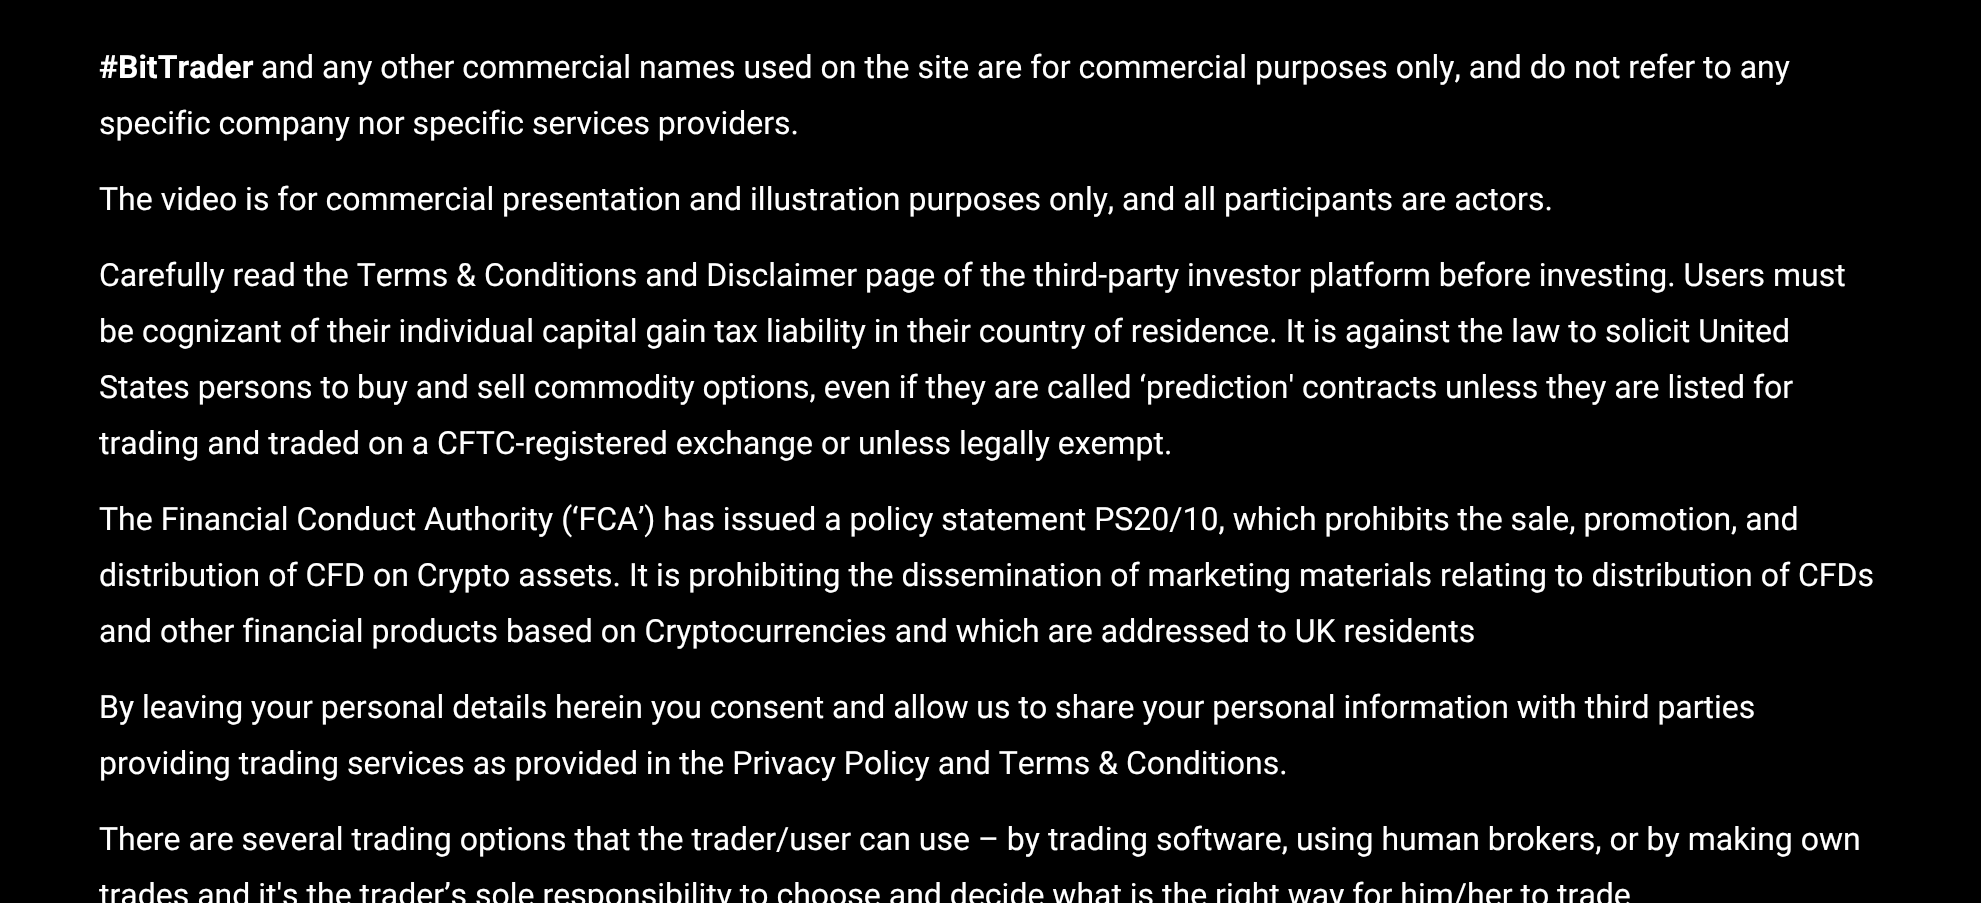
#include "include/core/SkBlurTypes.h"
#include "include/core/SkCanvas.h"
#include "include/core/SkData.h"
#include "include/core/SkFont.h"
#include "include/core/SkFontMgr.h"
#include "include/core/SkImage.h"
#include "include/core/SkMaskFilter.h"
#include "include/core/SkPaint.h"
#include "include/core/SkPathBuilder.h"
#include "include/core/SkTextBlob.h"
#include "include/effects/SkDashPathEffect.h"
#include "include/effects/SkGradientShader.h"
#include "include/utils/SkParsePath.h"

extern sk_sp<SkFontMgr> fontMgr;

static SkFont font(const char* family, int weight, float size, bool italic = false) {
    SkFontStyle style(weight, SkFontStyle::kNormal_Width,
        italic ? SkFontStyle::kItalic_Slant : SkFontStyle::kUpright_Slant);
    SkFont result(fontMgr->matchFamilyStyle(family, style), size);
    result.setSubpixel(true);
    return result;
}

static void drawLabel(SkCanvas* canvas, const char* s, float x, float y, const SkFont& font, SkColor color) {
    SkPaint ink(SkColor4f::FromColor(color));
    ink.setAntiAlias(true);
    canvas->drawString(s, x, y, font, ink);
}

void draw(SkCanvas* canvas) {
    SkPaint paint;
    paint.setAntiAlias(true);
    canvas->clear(0xFF000000);
    SkFont font1 = font("Roboto", 700, 32);
    drawLabel(canvas, "#BitTrader", 99, 78, font1, 0xFFFFFFFF);
    SkFont font2 = font("Roboto", 400, 32);
    drawLabel(canvas, "and any other commercial names used on the site are for commercial purposes only, and do not refer to any", 261, 78, font2, 0xFFFFFFFF);
    drawLabel(canvas, "specific company nor specific services providers.", 99, 134, font2, 0xFFFFFFFF);
    drawLabel(canvas, "The video is for commercial presentation and illustration purposes only, and all participants are actors.", 99, 210, font2, 0xFFFFFFFF);
    drawLabel(canvas, "Carefully read the Terms & Conditions and Disclaimer page of the third-party investor platform before investing. Users must", 99, 286, font2, 0xFFFFFFFF);
    drawLabel(canvas, "be cognizant of their individual capital gain tax liability in their country of residence. It is against the law to solicit United", 99, 342, font2, 0xFFFFFFFF);
    drawLabel(canvas, "States persons to buy and sell commodity options, even if they are called ‘prediction' contracts unless they are listed for", 99, 398, font2, 0xFFFFFFFF);
    drawLabel(canvas, "trading and traded on a CFTC-registered exchange or unless legally exempt.", 99, 454, font2, 0xFFFFFFFF);
    drawLabel(canvas, "The Financial Conduct Authority (‘FCA’) has issued a policy statement PS20/10, which prohibits the sale, promotion, and", 99, 530, font2, 0xFFFFFFFF);
    drawLabel(canvas, "distribution of CFD on Crypto assets. It is prohibiting the dissemination of marketing materials relating to distribution of CFDs", 99, 586, font2, 0xFFFFFFFF);
    drawLabel(canvas, "and other financial products based on Cryptocurrencies and which are addressed to UK residents", 99, 642, font2, 0xFFFFFFFF);
    drawLabel(canvas, "By leaving your personal details herein you consent and allow us to share your personal information with third parties", 99, 718, font2, 0xFFFFFFFF);
    drawLabel(canvas, "providing trading services as provided in the Privacy Policy and Terms & Conditions.", 99, 774, font2, 0xFFFFFFFF);
    drawLabel(canvas, "There are several trading options that the trader/user can use – by trading software, using human brokers, or by making own", 99, 850, font2, 0xFFFFFFFF);
    drawLabel(canvas, "trades and it's the trader’s sole responsibility to choose and decide what is the right way for him/her to trade", 99, 906, font2, 0xFFFFFFFF);
}
